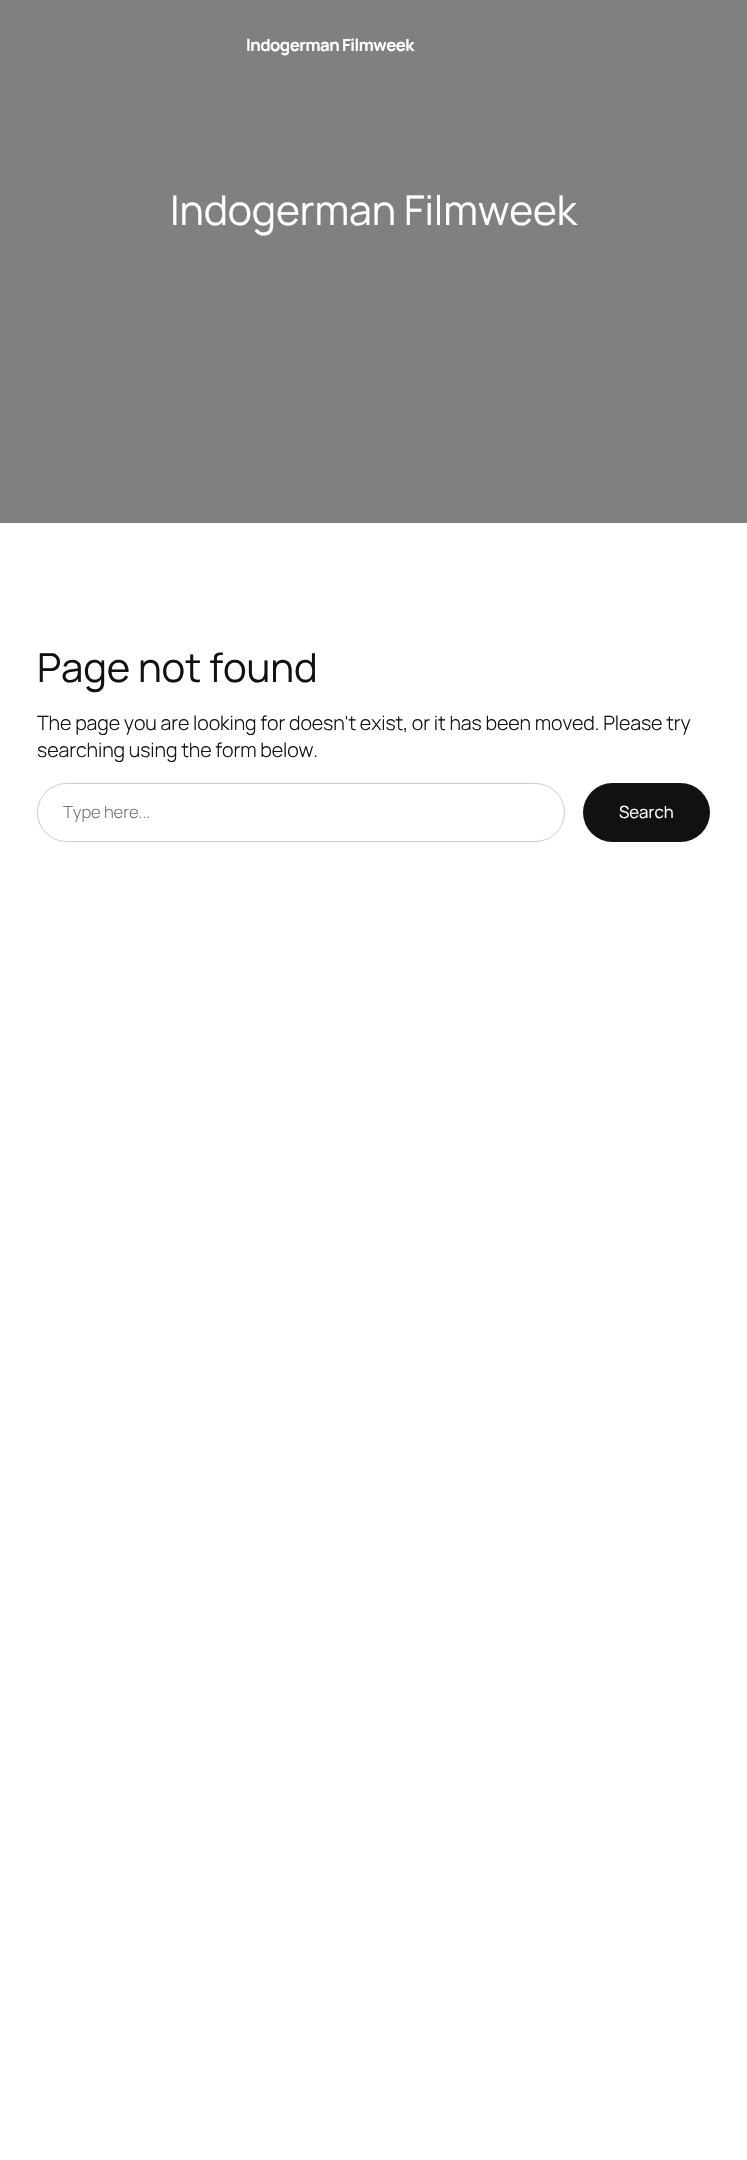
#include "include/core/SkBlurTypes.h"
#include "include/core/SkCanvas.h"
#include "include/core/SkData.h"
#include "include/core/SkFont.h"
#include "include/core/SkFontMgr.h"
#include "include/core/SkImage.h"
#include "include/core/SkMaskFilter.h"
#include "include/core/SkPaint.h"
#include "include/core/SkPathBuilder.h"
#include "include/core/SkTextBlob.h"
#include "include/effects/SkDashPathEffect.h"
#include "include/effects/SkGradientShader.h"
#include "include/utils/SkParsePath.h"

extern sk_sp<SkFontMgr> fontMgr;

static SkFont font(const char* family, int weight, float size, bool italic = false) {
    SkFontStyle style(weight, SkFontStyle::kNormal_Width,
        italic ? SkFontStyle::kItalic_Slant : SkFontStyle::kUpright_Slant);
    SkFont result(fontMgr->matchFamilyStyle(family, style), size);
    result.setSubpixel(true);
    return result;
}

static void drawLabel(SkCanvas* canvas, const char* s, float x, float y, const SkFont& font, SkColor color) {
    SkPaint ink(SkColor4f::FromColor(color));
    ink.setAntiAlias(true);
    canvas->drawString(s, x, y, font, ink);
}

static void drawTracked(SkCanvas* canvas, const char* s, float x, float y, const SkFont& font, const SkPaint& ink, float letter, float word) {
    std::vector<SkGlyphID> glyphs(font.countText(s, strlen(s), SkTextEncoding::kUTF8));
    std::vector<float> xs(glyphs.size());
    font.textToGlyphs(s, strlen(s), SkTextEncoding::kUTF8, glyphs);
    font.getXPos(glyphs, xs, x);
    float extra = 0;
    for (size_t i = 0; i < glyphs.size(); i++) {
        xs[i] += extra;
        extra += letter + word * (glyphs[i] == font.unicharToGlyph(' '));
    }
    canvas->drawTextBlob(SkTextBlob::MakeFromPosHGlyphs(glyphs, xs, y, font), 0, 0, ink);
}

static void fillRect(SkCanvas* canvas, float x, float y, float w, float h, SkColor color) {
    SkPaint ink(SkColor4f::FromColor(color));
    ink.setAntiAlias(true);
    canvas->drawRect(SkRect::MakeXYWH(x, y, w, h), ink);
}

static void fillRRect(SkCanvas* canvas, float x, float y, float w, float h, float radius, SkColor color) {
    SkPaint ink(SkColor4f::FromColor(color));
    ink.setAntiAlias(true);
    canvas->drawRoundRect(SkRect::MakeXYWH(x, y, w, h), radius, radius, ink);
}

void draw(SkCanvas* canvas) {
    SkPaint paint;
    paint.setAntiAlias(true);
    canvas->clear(0xFFFFFFFF);
    fillRect(canvas, 0, 0, 747, 523, 0xFF808080);
    SkFont font1 = font("Manrope", 700, 16.75f);
    paint.setColor(0xFFFFFFFF);
    drawTracked(canvas, "Indogerman Filmweek", 246, 51, font1, paint, -0.5f, 0);
    SkFont font2 = font("Manrope", 400, 40.9f);
    drawTracked(canvas, "Indogerman Filmweek", 170, 225, font2, paint, -0.1f, 0);
    SkFont font3 = font("Manrope", 400, 40);
    paint.setColor(0xFF111111);
    drawTracked(canvas, "Page not found", 37, 682, font3, paint, -0.1f, 0);
    SkFont font4 = font("Manrope", 300, 19.7f);
    drawTracked(canvas, "The page you are looking for doesn't exist, or it has been moved. Please try", 37, 730, font4, paint, -0.1f, 0);
    drawTracked(canvas, "searching using the form below.", 37, 757, font4, paint, -0.1f, 0);
    paint.setStroke(true);
    paint.setStrokeWidth(1);
    paint.setColor(0xFFCCCCCC);
    canvas->drawRoundRect(SkRect::MakeXYWH(37.5f, 783.5f, 527, 58), 29, 29, paint);
    SkFont font5 = font("Manrope", 300, 16.75f);
    paint.setStroke(false);
    paint.setColor(0xFF757575);
    drawTracked(canvas, "Type here...", 63, 818, font5, paint, -0.1f, 0);
    fillRRect(canvas, 583, 783, 127, 59, 29.5f, 0xFF111111);
    SkFont font6 = font("Manrope", 400, 16.75f);
    drawLabel(canvas, "Search", 619, 818, font6, 0xFFFFFFFF);
}
